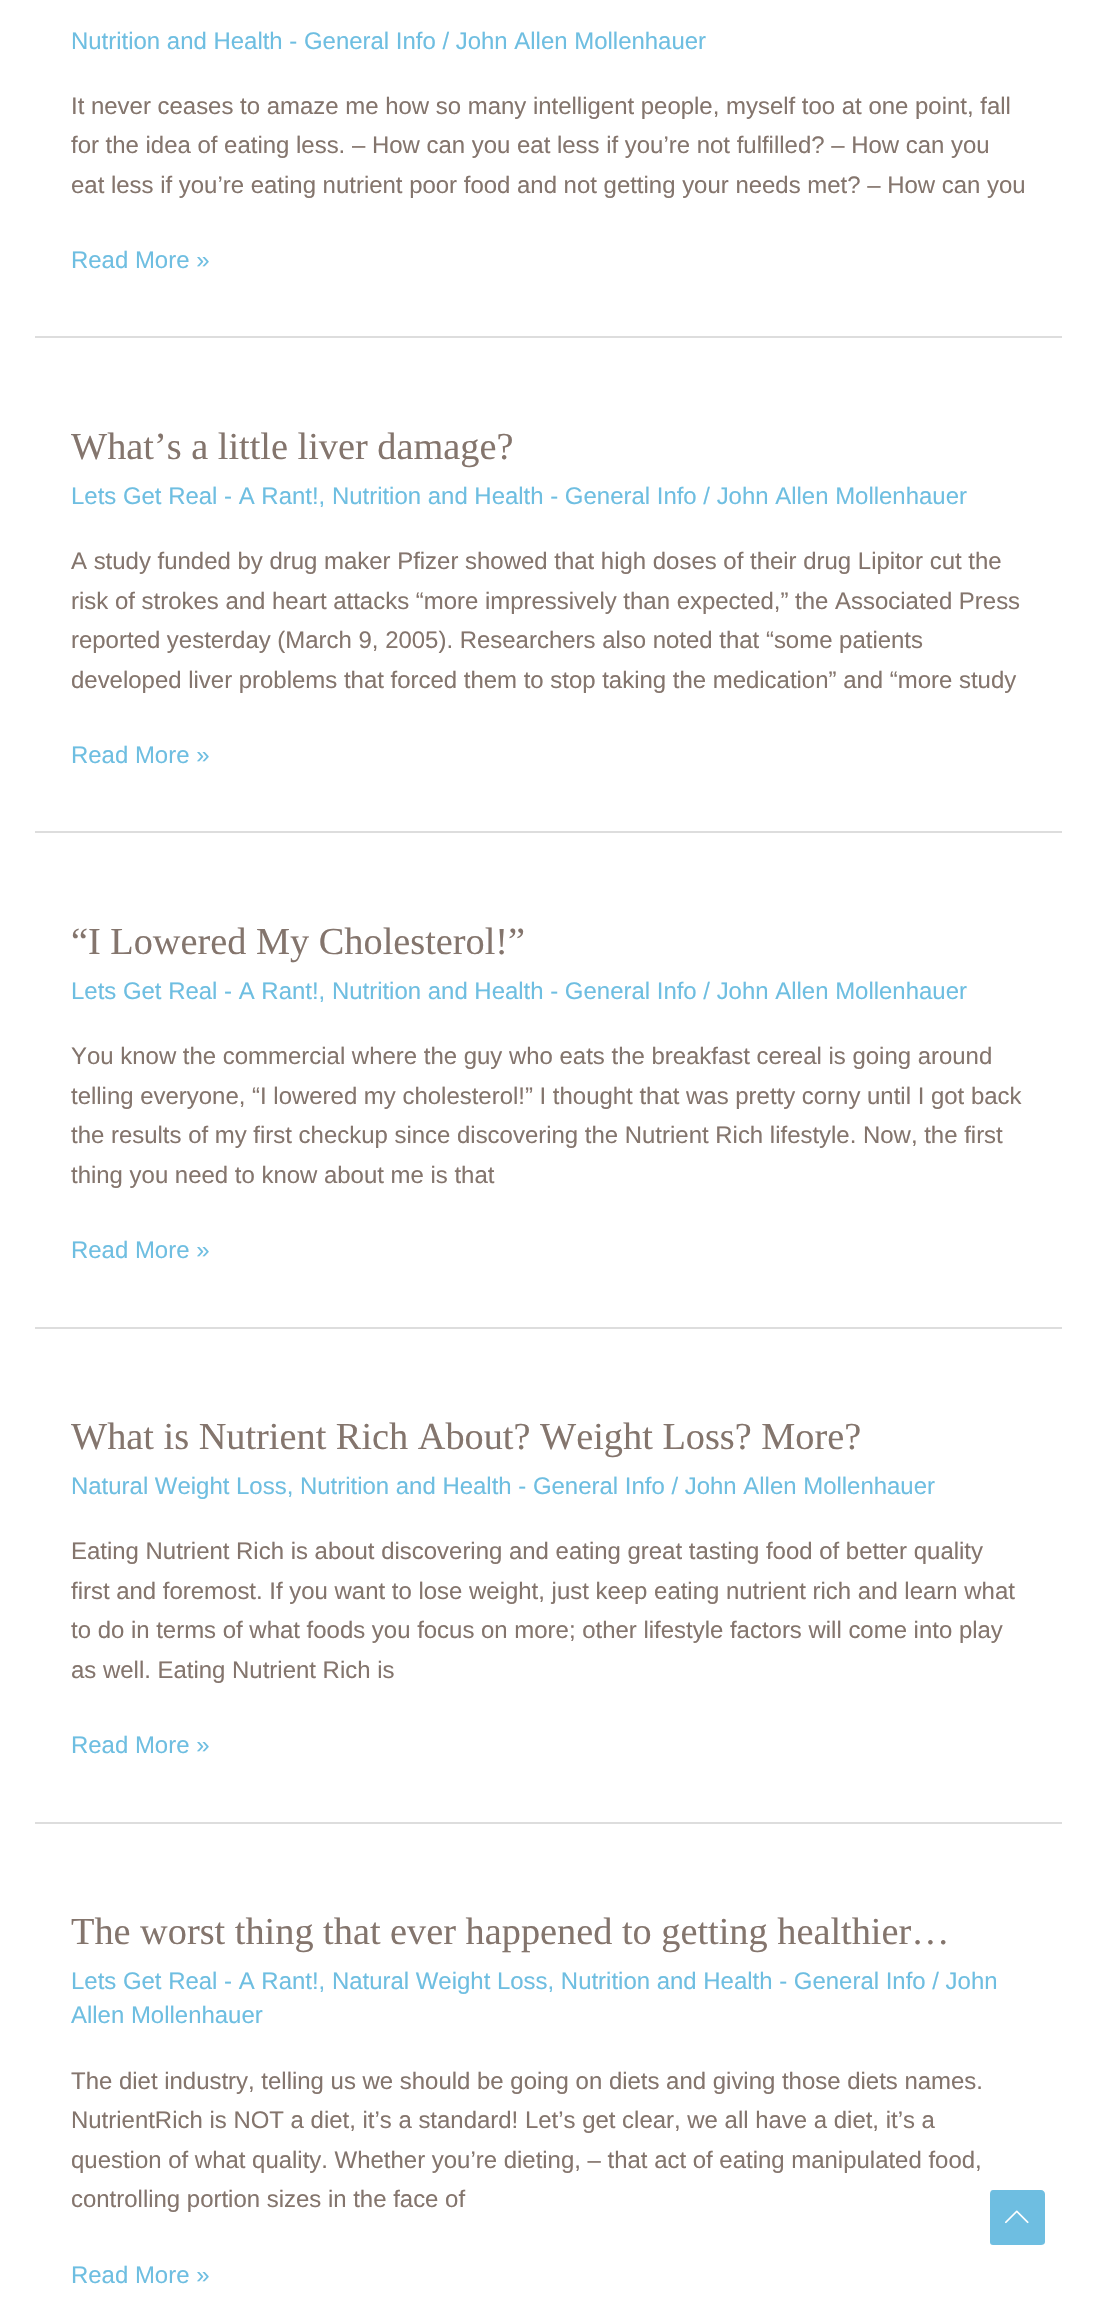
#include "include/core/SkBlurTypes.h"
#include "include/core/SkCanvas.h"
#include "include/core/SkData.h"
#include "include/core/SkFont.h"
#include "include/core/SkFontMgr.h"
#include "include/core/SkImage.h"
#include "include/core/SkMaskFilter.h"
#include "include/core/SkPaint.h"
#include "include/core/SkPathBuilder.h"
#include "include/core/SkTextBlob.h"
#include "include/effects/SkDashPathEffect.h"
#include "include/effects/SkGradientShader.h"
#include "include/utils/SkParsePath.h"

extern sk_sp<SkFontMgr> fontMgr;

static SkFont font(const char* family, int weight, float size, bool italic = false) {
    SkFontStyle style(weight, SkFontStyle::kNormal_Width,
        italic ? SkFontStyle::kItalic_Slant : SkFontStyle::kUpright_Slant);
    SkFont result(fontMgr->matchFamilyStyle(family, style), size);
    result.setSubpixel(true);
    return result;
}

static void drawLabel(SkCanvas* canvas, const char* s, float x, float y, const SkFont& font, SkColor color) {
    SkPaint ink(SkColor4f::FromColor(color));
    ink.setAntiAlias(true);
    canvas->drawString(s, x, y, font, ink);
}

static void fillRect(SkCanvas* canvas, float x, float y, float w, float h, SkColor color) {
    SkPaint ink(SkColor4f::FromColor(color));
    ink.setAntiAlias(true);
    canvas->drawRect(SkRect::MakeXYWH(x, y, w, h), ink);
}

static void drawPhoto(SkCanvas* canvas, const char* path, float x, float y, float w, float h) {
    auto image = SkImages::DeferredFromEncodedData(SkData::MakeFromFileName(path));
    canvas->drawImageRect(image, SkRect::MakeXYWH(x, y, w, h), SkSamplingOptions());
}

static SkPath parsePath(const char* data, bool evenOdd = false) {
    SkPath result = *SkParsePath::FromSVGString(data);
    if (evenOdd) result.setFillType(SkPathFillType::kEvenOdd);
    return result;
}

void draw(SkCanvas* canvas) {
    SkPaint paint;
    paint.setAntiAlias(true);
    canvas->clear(0xFFFFFFFF);
    fillRect(canvas, 35, 336, 1027, 2, 0xFFDDDDDD);
    SkFont font1 = font("Liberation Sans", 400, 23.95f);
    drawLabel(canvas, "Nutrition and Health - General Info / John Allen Mollenhauer", 71, 49, font1, 0xFF6EBEE1);
    drawLabel(canvas, "It never ceases to amaze me how so many intelligent people, myself too at one point, fall", 71, 114, font1, 0xFF84756D);
    drawLabel(canvas, "for the idea of eating less. – How can you eat less if you’re not fulfilled? – How can you", 71, 153, font1, 0xFF84756D);
    drawLabel(canvas, "eat less if you’re eating nutrient poor food and not getting your needs met? – How can you", 71, 193, font1, 0xFF84756D);
    drawLabel(canvas, "Read More »", 71, 268, font1, 0xFF6EBEE1);
    fillRect(canvas, 35, 831, 1027, 2, 0xFFDDDDDD);
    SkFont font2 = font("Liberation Serif", 400, 38.3f);
    drawLabel(canvas, "What’s a little liver damage?", 71, 459, font2, 0xFF84756D);
    drawLabel(canvas, "Lets Get Real - A Rant!, Nutrition and Health - General Info / John Allen Mollenhauer", 71, 504, font1, 0xFF6EBEE1);
    drawLabel(canvas, "A study funded by drug maker Pfizer showed that high doses of their drug Lipitor cut the", 71, 569, font1, 0xFF84756D);
    drawLabel(canvas, "risk of strokes and heart attacks “more impressively than expected,” the Associated Press", 71, 609, font1, 0xFF84756D);
    drawLabel(canvas, "reported yesterday (March 9, 2005). Researchers also noted that “some patients", 71, 648, font1, 0xFF84756D);
    drawLabel(canvas, "developed liver problems that forced them to stop taking the medication” and “more study", 71, 688, font1, 0xFF84756D);
    drawLabel(canvas, "Read More »", 71, 763, font1, 0xFF6EBEE1);
    fillRect(canvas, 35, 1327, 1027, 2, 0xFFDDDDDD);
    drawLabel(canvas, "“I Lowered My Cholesterol!”", 71, 954, font2, 0xFF84756D);
    drawLabel(canvas, "Lets Get Real - A Rant!, Nutrition and Health - General Info / John Allen Mollenhauer", 71, 999, font1, 0xFF6EBEE1);
    drawLabel(canvas, "You know the commercial where the guy who eats the breakfast cereal is going around", 71, 1064, font1, 0xFF84756D);
    drawLabel(canvas, "telling everyone, “I lowered my cholesterol!” I thought that was pretty corny until I got back", 71, 1104, font1, 0xFF84756D);
    drawLabel(canvas, "the results of my first checkup since discovering the Nutrient Rich lifestyle. Now, the first", 71, 1143, font1, 0xFF84756D);
    drawLabel(canvas, "thing you need to know about me is that", 71, 1183, font1, 0xFF84756D);
    drawLabel(canvas, "Read More »", 71, 1258, font1, 0xFF6EBEE1);
    fillRect(canvas, 35, 1822, 1027, 2, 0xFFDDDDDD);
    drawLabel(canvas, "What is Nutrient Rich About? Weight Loss? More?", 71, 1449, font2, 0xFF84756D);
    drawLabel(canvas, "Natural Weight Loss, Nutrition and Health - General Info / John Allen Mollenhauer", 71, 1494, font1, 0xFF6EBEE1);
    drawLabel(canvas, "Eating Nutrient Rich is about discovering and eating great tasting food of better quality", 71, 1559, font1, 0xFF84756D);
    drawLabel(canvas, "first and foremost. If you want to lose weight, just keep eating nutrient rich and learn what", 71, 1599, font1, 0xFF84756D);
    drawLabel(canvas, "to do in terms of what foods you focus on more; other lifestyle factors will come into play", 71, 1638, font1, 0xFF84756D);
    drawLabel(canvas, "as well. Eating Nutrient Rich is", 71, 1678, font1, 0xFF84756D);
    drawLabel(canvas, "Read More »", 71, 1753, font1, 0xFF6EBEE1);
    drawLabel(canvas, "The worst thing that ever happened to getting healthier…", 71, 1944, font2, 0xFF84756D);
    drawLabel(canvas, "Lets Get Real - A Rant!, Natural Weight Loss, Nutrition and Health - General Info / John", 71, 1989, font1, 0xFF6EBEE1);
    drawLabel(canvas, "Allen Mollenhauer", 71, 2023, font1, 0xFF6EBEE1);
    drawLabel(canvas, "The diet industry, telling us we should be going on diets and giving those diets names.", 71, 2089, font1, 0xFF84756D);
    drawLabel(canvas, "NutrientRich is NOT a diet, it’s a standard! Let’s get clear, we all have a diet, it’s a", 71, 2128, font1, 0xFF84756D);
    drawLabel(canvas, "question of what quality. Whether you’re dieting, – that act of eating manipulated food,", 71, 2168, font1, 0xFF84756D);
    drawLabel(canvas, "controlling portion sizes in the face of", 71, 2207, font1, 0xFF84756D);
    drawLabel(canvas, "Read More »", 71, 2283, font1, 0xFF6EBEE1);
    paint.setColor(0xFF6EBEE1);
    canvas->drawPath(parsePath("M1041 2245H993C991 2245 990 2244 990 2242V2194C990 2192 991 2190 993 2190H1041C1043 2190 1045 2192 1045 2194V2242C1045 2244 1043 2245 1041 2245Z"), paint);
    drawPhoto(canvas, "assets/img1.png", 1005, 2210, 24, 14);
}
